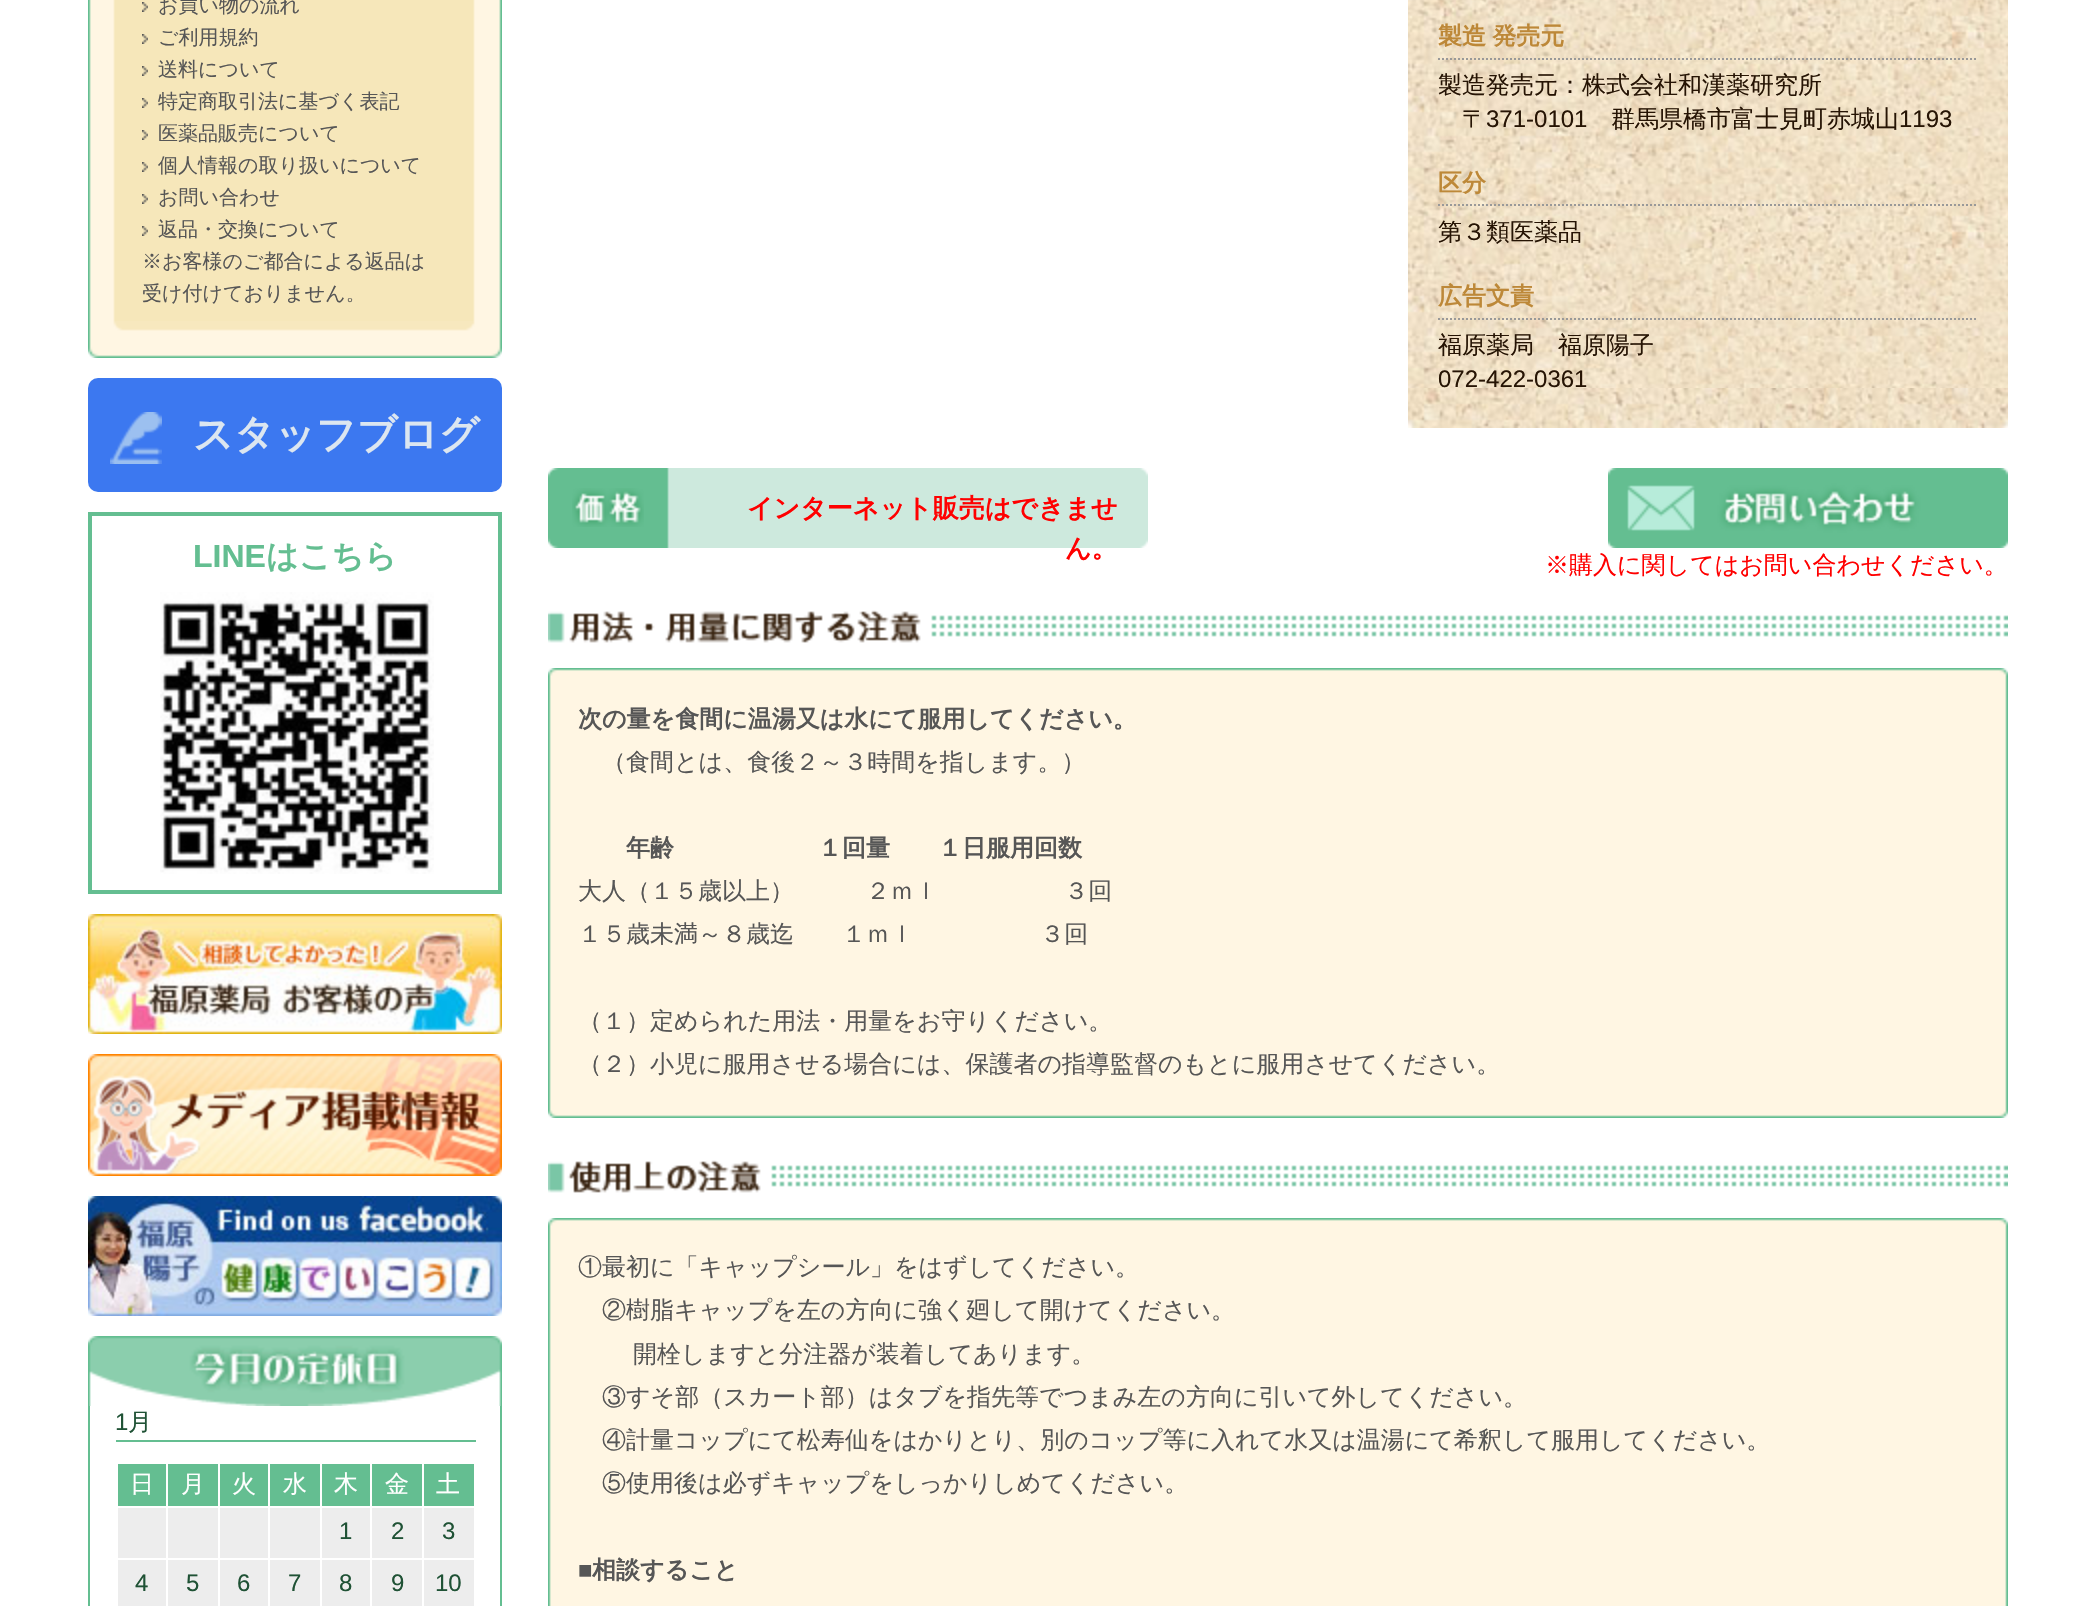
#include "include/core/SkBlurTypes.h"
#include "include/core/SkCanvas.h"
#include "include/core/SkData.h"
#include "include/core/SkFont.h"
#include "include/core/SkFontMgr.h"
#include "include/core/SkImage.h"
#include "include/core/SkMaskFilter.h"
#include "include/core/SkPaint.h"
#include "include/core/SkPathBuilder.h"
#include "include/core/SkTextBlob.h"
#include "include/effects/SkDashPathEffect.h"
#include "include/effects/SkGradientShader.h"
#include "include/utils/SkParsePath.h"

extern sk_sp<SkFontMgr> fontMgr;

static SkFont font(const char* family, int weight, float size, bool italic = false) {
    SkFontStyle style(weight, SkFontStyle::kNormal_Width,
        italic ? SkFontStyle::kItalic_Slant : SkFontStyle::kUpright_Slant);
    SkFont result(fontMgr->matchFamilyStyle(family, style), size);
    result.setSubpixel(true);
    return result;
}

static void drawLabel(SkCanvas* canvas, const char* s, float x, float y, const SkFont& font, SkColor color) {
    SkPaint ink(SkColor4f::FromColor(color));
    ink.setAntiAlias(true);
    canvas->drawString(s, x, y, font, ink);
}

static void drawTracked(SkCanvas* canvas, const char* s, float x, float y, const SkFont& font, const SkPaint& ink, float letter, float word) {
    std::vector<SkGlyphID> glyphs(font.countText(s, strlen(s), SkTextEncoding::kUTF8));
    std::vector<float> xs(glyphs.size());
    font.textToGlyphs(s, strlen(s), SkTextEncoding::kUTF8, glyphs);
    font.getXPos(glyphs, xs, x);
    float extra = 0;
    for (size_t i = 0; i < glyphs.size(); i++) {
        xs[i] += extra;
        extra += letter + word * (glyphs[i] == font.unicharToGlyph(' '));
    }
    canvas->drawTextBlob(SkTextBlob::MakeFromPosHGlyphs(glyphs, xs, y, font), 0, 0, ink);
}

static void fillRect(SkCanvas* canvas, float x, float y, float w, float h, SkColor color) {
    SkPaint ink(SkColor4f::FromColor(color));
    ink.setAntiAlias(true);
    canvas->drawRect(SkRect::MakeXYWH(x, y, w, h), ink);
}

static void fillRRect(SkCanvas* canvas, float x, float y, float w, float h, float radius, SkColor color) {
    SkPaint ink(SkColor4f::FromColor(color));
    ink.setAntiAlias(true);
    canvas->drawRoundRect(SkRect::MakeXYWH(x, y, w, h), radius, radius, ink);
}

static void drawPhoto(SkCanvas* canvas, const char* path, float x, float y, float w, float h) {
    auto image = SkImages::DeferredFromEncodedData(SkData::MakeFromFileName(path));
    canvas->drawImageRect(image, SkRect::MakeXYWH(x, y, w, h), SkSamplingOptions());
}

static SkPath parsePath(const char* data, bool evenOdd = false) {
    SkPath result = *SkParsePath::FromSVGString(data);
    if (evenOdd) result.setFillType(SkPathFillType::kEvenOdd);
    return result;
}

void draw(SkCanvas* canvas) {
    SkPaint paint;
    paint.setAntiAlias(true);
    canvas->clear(0xFFFFFFFF);
    drawPhoto(canvas, "assets/img1.png", 88, 0, 414, 321);
    drawPhoto(canvas, "assets/img2.png", 88, 321, 414, 37);
    drawPhoto(canvas, "assets/img3.png", 142, 2, 6, 10);
    SkFont font1 = font("WenQuanYi Zen Hei", 500, 20);
    drawLabel(canvas, "お買い物の流れ", 158, 12, font1, 0xFF565656);
    drawPhoto(canvas, "assets/img3.png", 142, 34, 6, 10);
    drawLabel(canvas, "ご利用規約", 158, 44, font1, 0xFF565656);
    drawPhoto(canvas, "assets/img3.png", 142, 66, 6, 10);
    drawLabel(canvas, "送料について", 158, 76, font1, 0xFF565656);
    drawPhoto(canvas, "assets/img3.png", 142, 98, 6, 10);
    drawLabel(canvas, "特定商取引法に基づく表記", 158, 108, font1, 0xFF565656);
    drawPhoto(canvas, "assets/img3.png", 142, 130, 6, 10);
    drawLabel(canvas, "医薬品販売について", 158, 140, font1, 0xFF565656);
    drawPhoto(canvas, "assets/img3.png", 142, 162, 6, 10);
    drawLabel(canvas, "個人情報の取り扱いについて", 158, 172, font1, 0xFF565656);
    drawPhoto(canvas, "assets/img3.png", 142, 194, 6, 10);
    drawLabel(canvas, "お問い合わせ", 158, 204, font1, 0xFF565656);
    drawPhoto(canvas, "assets/img3.png", 142, 226, 6, 10);
    drawLabel(canvas, "返品・交換について", 158, 236, font1, 0xFF565656);
    drawLabel(canvas, "※お客様のご都合による返品は", 142, 268, font1, 0xFF565656);
    drawLabel(canvas, "受け付けておりません。", 142, 300, font1, 0xFF565656);
    fillRRect(canvas, 88, 378, 414, 114, 10, 0xFF3C78F0);
    drawPhoto(canvas, "assets/img4.png", 110, 412, 52, 52);
    SkFont font2 = font("WenQuanYi Zen Hei", 700, 40);
    drawLabel(canvas, "スタッフブログ", 193, 448, font2, 0xFFDCE6F0);
    paint.setStroke(true);
    paint.setStrokeWidth(4);
    paint.setColor(0xFF64BE91);
    canvas->drawRect(SkRect::MakeXYWH(90, 514, 410, 378), paint);
    SkFont font3 = font("Liberation Sans", 700, 32);
    drawLabel(canvas, "LINE", 193, 567, font3, 0xFF64BE91);
    SkFont font4 = font("WenQuanYi Zen Hei", 700, 32);
    drawLabel(canvas, "はこちら", 266, 567, font4, 0xFF64BE91);
    drawPhoto(canvas, "assets/img5.png", 160, 592, 274, 282);
    drawPhoto(canvas, "assets/img6.png", 88, 914, 414, 120);
    drawPhoto(canvas, "assets/img7.png", 88, 1054, 414, 122);
    drawPhoto(canvas, "assets/img8.png", 88, 1196, 414, 120);
    drawPhoto(canvas, "assets/img9.png", 88, 1336, 414, 70);
    fillRect(canvas, 500, 1406, 2, 200, 0xFF64BE91);
    fillRect(canvas, 88, 1406, 2, 200, 0xFF64BE91);
    fillRect(canvas, 116, 1440, 360, 2, 0xFF64BE91);
    SkFont font5 = font("Liberation Sans", 400, 24);
    drawLabel(canvas, "1", 115, 1430, font5, 0xFF1F5235);
    SkFont font6 = font("WenQuanYi Zen Hei", 500, 24);
    drawLabel(canvas, "月", 128, 1430, font6, 0xFF1F5235);
    fillRect(canvas, 118, 1464, 48, 42, 0xFF64BE91);
    drawLabel(canvas, "日", 130, 1492, font6, 0xFFFFFFFF);
    fillRect(canvas, 168, 1464, 50, 42, 0xFF64BE91);
    drawLabel(canvas, "月", 181, 1492, font6, 0xFFFFFFFF);
    fillRect(canvas, 220, 1464, 48, 42, 0xFF64BE91);
    drawLabel(canvas, "火", 232, 1492, font6, 0xFFFFFFFF);
    fillRect(canvas, 270, 1464, 50, 42, 0xFF64BE91);
    drawLabel(canvas, "水", 283, 1492, font6, 0xFFFFFFFF);
    fillRect(canvas, 322, 1464, 48, 42, 0xFF64BE91);
    drawLabel(canvas, "木", 334, 1492, font6, 0xFFFFFFFF);
    fillRect(canvas, 372, 1464, 50, 42, 0xFF64BE91);
    drawLabel(canvas, "金", 385, 1492, font6, 0xFFFFFFFF);
    fillRect(canvas, 424, 1464, 50, 42, 0xFF64BE91);
    drawLabel(canvas, "土", 436, 1492, font6, 0xFFFFFFFF);
    fillRect(canvas, 118, 1508, 48, 50, 0xFFEDEDED);
    fillRect(canvas, 168, 1508, 50, 50, 0xFFEDEDED);
    fillRect(canvas, 220, 1508, 48, 50, 0xFFEDEDED);
    fillRect(canvas, 270, 1508, 50, 50, 0xFFEDEDED);
    fillRect(canvas, 322, 1508, 48, 50, 0xFFEDEDED);
    drawLabel(canvas, "1", 339, 1539, font5, 0xFF1F5235);
    fillRect(canvas, 372, 1508, 50, 50, 0xFFEDEDED);
    drawLabel(canvas, "2", 391, 1539, font5, 0xFF1F5235);
    fillRect(canvas, 424, 1508, 50, 50, 0xFFEDEDED);
    drawLabel(canvas, "3", 442, 1539, font5, 0xFF1F5235);
    fillRect(canvas, 118, 1560, 48, 46, 0xFFEDEDED);
    drawLabel(canvas, "4", 135, 1591, font5, 0xFF1F5235);
    fillRect(canvas, 168, 1560, 50, 46, 0xFFEDEDED);
    drawLabel(canvas, "5", 186, 1591, font5, 0xFF1F5235);
    fillRect(canvas, 220, 1560, 48, 46, 0xFFEDEDED);
    drawLabel(canvas, "6", 237, 1591, font5, 0xFF1F5235);
    fillRect(canvas, 270, 1560, 50, 46, 0xFFEDEDED);
    drawLabel(canvas, "7", 288, 1591, font5, 0xFF1F5235);
    fillRect(canvas, 322, 1560, 48, 46, 0xFFEDEDED);
    drawLabel(canvas, "8", 339, 1591, font5, 0xFF1F5235);
    fillRect(canvas, 372, 1560, 50, 46, 0xFFEDEDED);
    drawLabel(canvas, "9", 391, 1591, font5, 0xFF1F5235);
    fillRect(canvas, 424, 1560, 50, 46, 0xFFEDEDED);
    drawLabel(canvas, "10", 435, 1591, font5, 0xFF1F5235);
    drawPhoto(canvas, "assets/img10.png", 1408, 0, 600, 388);
    drawPhoto(canvas, "assets/img11.png", 1408, 388, 600, 40);
    paint.setStrokeWidth(2);
    paint.setColor(0xFF999999);
    paint.setPathEffect(SkDashPathEffect::Make({{2, 2}}, 0));
    canvas->drawPath(parsePath("M1438 59H1978"), paint);
    paint.setPathEffect(nullptr);
    SkFont font7 = font("WenQuanYi Zen Hei", 700, 24);
    paint.setStroke(false);
    paint.setColor(0xFFBD8838);
    drawTracked(canvas, "製造 発売元", 1438, 44, font7, paint, 0, -1);
    drawLabel(canvas, "製造発売元：株式会社和漢薬研究所", 1438, 93, font6, 0xFF261404);
    drawLabel(canvas, "〒", 1462, 127, font6, 0xFF261404);
    drawLabel(canvas, "371-0101", 1486, 127, font5, 0xFF261404);
    drawLabel(canvas, "群馬県橋市富士見町赤城山", 1611, 127, font6, 0xFF261404);
    drawLabel(canvas, "1193", 1899, 127, font5, 0xFF261404);
    paint.setStroke(true);
    paint.setColor(0xFF999999);
    paint.setPathEffect(SkDashPathEffect::Make({{2, 2}}, 0));
    canvas->drawPath(parsePath("M1438 205H1978"), paint);
    paint.setPathEffect(nullptr);
    drawLabel(canvas, "区分", 1438, 191, font7, 0xFFBD8838);
    drawLabel(canvas, "第３類医薬品", 1438, 240, font6, 0xFF261404);
    paint.setPathEffect(SkDashPathEffect::Make({{2, 2}}, 0));
    canvas->drawPath(parsePath("M1438 319H1978"), paint);
    paint.setPathEffect(nullptr);
    drawLabel(canvas, "広告文責", 1438, 304, font7, 0xFFBD8838);
    drawLabel(canvas, "福原薬局　福原陽子", 1438, 353, font6, 0xFF261404);
    drawLabel(canvas, "072-422-0361", 1438, 387, font5, 0xFF261404);
    drawPhoto(canvas, "assets/img12.png", 548, 468, 600, 80);
    drawPhoto(canvas, "assets/img13.png", 572, 488, 72, 39);
    SkFont font8 = font("WenQuanYi Zen Hei", 700, 26);
    drawLabel(canvas, "インターネット販売はできませ", 747, 517, font8, 0xFFFF0000);
    drawLabel(canvas, "ん。", 1065, 557, font8, 0xFFFF0000);
    drawPhoto(canvas, "assets/img14.png", 1608, 468, 400, 80);
    drawLabel(canvas, "※購入に関してはお問い合わせください。", 1545, 573, font6, 0xFFFF0000);
    drawPhoto(canvas, "assets/img15.png", 548, 610, 1460, 33);
    drawPhoto(canvas, "assets/img16.png", 548, 676, 1460, 434);
    drawPhoto(canvas, "assets/img17.png", 548, 668, 1460, 8);
    drawPhoto(canvas, "assets/img18.png", 548, 1110, 1460, 8);
    drawLabel(canvas, "次の量を食間に温湯又は水にて服用してください。", 578, 727, font7, 0xFF565656);
    drawLabel(canvas, "（食間とは、食後２～３時間を指します。）", 602, 770, font6, 0xFF565656);
    drawLabel(canvas, "年齢　　　　　　１回量　　１日服用回数", 626, 856, font7, 0xFF565656);
    paint.setStroke(false);
    paint.setColor(0xFF565656);
    drawTracked(canvas, "大人（１５歳以上）　　　２ｍｌ　　　　　 ３回", 578, 899, font6, paint, 0, -1);
    drawTracked(canvas, "１５歳未満～８歳迄　　１ｍｌ　　　　　 ３回", 578, 942, font6, paint, 0, -1);
    drawLabel(canvas, "（１）定められた用法・用量をお守りください。", 578, 1029, font6, 0xFF565656);
    drawLabel(canvas, "（２）小児に服用させる場合には、保護者の指導監督のもとに服用させてください。", 578, 1072, font6, 0xFF565656);
    drawPhoto(canvas, "assets/img19.png", 548, 1160, 1460, 33);
    drawPhoto(canvas, "assets/img20.png", 548, 1226, 1460, 380);
    drawPhoto(canvas, "assets/img17.png", 548, 1218, 1460, 8);
    drawLabel(canvas, "①最初に「キャップシール」をはずしてください。", 578, 1275, font6, 0xFF565656);
    drawLabel(canvas, "②樹脂キャップを左の方向に強く廻して開けてください。", 602, 1318, font6, 0xFF565656);
    drawLabel(canvas, "開栓しますと分注器が装着してあります。", 633, 1362, font6, 0xFF565656);
    drawLabel(canvas, "③すそ部（スカート部）はタブを指先等でつまみ左の方向に引いて外してください。", 602, 1405, font6, 0xFF565656);
    drawLabel(canvas, "④計量コップにて松寿仙をはかりとり、別のコップ等に入れて水又は温湯にて希釈して服用してください。", 602, 1448, font6, 0xFF565656);
    drawLabel(canvas, "⑤使用後は必ずキャップをしっかりしめてください。", 602, 1491, font6, 0xFF565656);
    SkFont font9 = font("Liberation Sans", 700, 24);
    drawLabel(canvas, "■", 578, 1578, font9, 0xFF565656);
    drawLabel(canvas, "相談すること", 592, 1578, font7, 0xFF565656);
}
